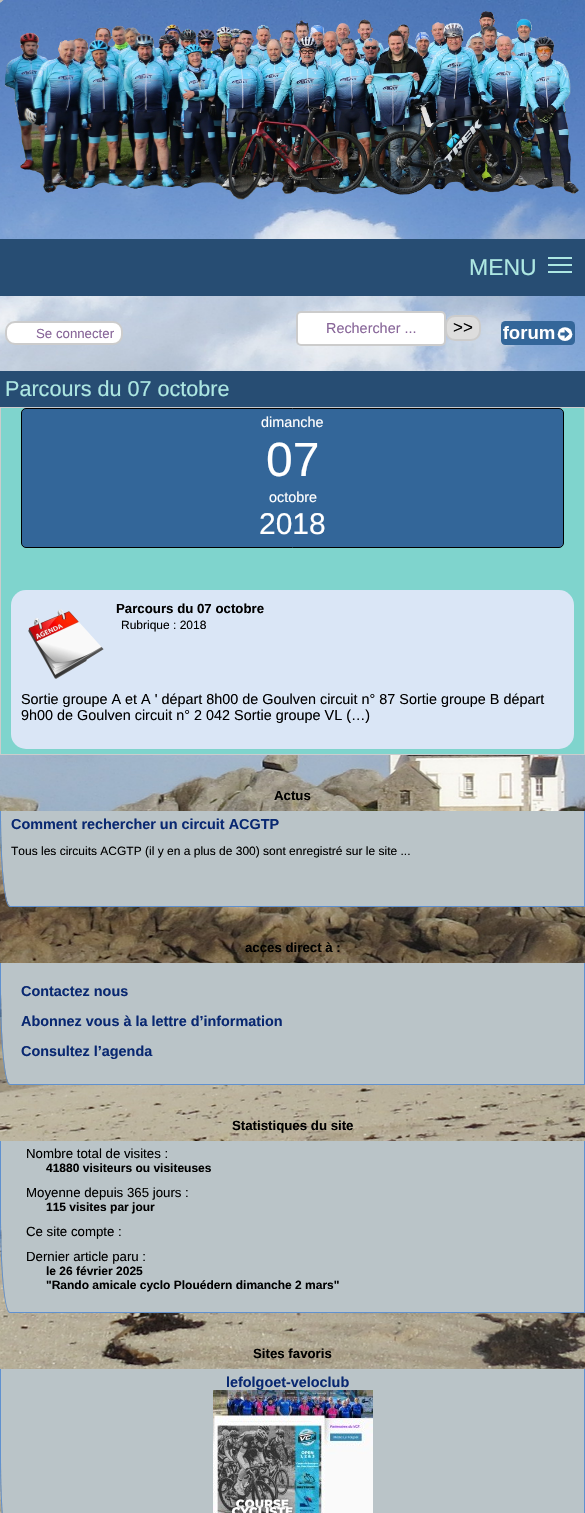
#include "include/core/SkBlurTypes.h"
#include "include/core/SkCanvas.h"
#include "include/core/SkData.h"
#include "include/core/SkFont.h"
#include "include/core/SkFontMgr.h"
#include "include/core/SkImage.h"
#include "include/core/SkMaskFilter.h"
#include "include/core/SkPaint.h"
#include "include/core/SkPathBuilder.h"
#include "include/core/SkTextBlob.h"
#include "include/effects/SkDashPathEffect.h"
#include "include/effects/SkGradientShader.h"
#include "include/utils/SkParsePath.h"

extern sk_sp<SkFontMgr> fontMgr;

static SkFont font(const char* family, int weight, float size, bool italic = false) {
    SkFontStyle style(weight, SkFontStyle::kNormal_Width,
        italic ? SkFontStyle::kItalic_Slant : SkFontStyle::kUpright_Slant);
    SkFont result(fontMgr->matchFamilyStyle(family, style), size);
    result.setSubpixel(true);
    return result;
}

static void drawLabel(SkCanvas* canvas, const char* s, float x, float y, const SkFont& font, SkColor color) {
    SkPaint ink(SkColor4f::FromColor(color));
    ink.setAntiAlias(true);
    canvas->drawString(s, x, y, font, ink);
}

static void fillRect(SkCanvas* canvas, float x, float y, float w, float h, SkColor color) {
    SkPaint ink(SkColor4f::FromColor(color));
    ink.setAntiAlias(true);
    canvas->drawRect(SkRect::MakeXYWH(x, y, w, h), ink);
}

static void fillRRect(SkCanvas* canvas, float x, float y, float w, float h, float radius, SkColor color) {
    SkPaint ink(SkColor4f::FromColor(color));
    ink.setAntiAlias(true);
    canvas->drawRoundRect(SkRect::MakeXYWH(x, y, w, h), radius, radius, ink);
}

static void drawPhoto(SkCanvas* canvas, const char* path, float x, float y, float w, float h) {
    auto image = SkImages::DeferredFromEncodedData(SkData::MakeFromFileName(path));
    canvas->drawImageRect(image, SkRect::MakeXYWH(x, y, w, h), SkSamplingOptions());
}

static SkPath parsePath(const char* data, bool evenOdd = false) {
    SkPath result = *SkParsePath::FromSVGString(data);
    if (evenOdd) result.setFillType(SkPathFillType::kEvenOdd);
    return result;
}

void draw(SkCanvas* canvas) {
    SkPaint paint;
    paint.setAntiAlias(true);
    canvas->clear(0xFFFFFFFF);
    drawPhoto(canvas, "assets/img1.png", 0, 0, 585, 1513);
    drawPhoto(canvas, "assets/img2.png", 0, 0, 585, 200);
    fillRect(canvas, 0, 239, 585, 57, 0xFF274D73);
    SkFont font1 = font("Liberation Sans", 400, 23);
    drawLabel(canvas, "MENU", 469, 275, font1, 0xFFADE7E2);
    fillRect(canvas, 548, 264, 24, 2, 0xFFADE7E2);
    fillRect(canvas, 548, 257, 24, 2, 0xFFADE7E2);
    fillRect(canvas, 548, 271, 24, 2, 0xFFADE7E2);
    paint.setColor(0xFFFFFFFF);
    canvas->drawRoundRect(SkRect::MakeXYWH(6, 322, 116, 22), 9, 9, paint);
    paint.setStroke(true);
    paint.setStrokeWidth(2);
    paint.setColor(0xFFCCCCCC);
    canvas->drawRoundRect(SkRect::MakeXYWH(6, 322, 116, 22), 9, 9, paint);
    SkFont font2 = font("Liberation Sans", 400, 13.25f);
    drawLabel(canvas, "Se connecter", 36, 338, font2, 0xFF886699);
    paint.setStroke(false);
    paint.setColor(0xFFFFFFFF);
    canvas->drawRoundRect(SkRect::MakeXYWH(297, 312, 148, 33), 4, 4, paint);
    paint.setStroke(true);
    paint.setColor(0xFFCCCCCC);
    canvas->drawRoundRect(SkRect::MakeXYWH(297, 312, 148, 33), 4, 4, paint);
    SkFont font3 = font("Liberation Sans", 400, 14.4f);
    drawLabel(canvas, "Rechercher ...", 326, 333, font3, 0xFF886699);
    paint.setStroke(false);
    paint.setColor(0xFFDDDDDD);
    canvas->drawRoundRect(SkRect::MakeXYWH(446, 316, 34, 24), 9, 9, paint);
    paint.setStroke(true);
    paint.setColor(0xFFCCCCCC);
    canvas->drawRoundRect(SkRect::MakeXYWH(446, 316, 34, 24), 9, 9, paint);
    SkFont font4 = font("Liberation Sans", 400, 17);
    drawLabel(canvas, ">>", 453, 333, font4, 0xFF000000);
    drawPhoto(canvas, "assets/img3.png", 501, 321, 74, 24);
    fillRect(canvas, 0, 371, 585, 36, 0xFF274D73);
    SkFont font5 = font("Liberation Sans", 400, 21.6f);
    drawLabel(canvas, "Parcours du 07 octobre", 5, 396, font5, 0xFFADE7E2);
    paint.setStroke(false);
    paint.setColor(0xFF7FD4CD);
    canvas->drawRect(SkRect::MakeXYWH(0.5f, 407.5f, 584, 347), paint);
    paint.setStroke(true);
    paint.setStrokeWidth(1);
    paint.setColor(0xFFCCCCCC);
    canvas->drawRect(SkRect::MakeXYWH(0.5f, 407.5f, 584, 347), paint);
    paint.setStroke(false);
    paint.setColor(0xFF336699);
    canvas->drawRoundRect(SkRect::MakeXYWH(21.5f, 408.5f, 542, 139), 4.5f, 4.5f, paint);
    paint.setStroke(true);
    paint.setColor(0xFF000000);
    canvas->drawRoundRect(SkRect::MakeXYWH(21.5f, 408.5f, 542, 139), 4.5f, 4.5f, paint);
    drawLabel(canvas, "dimanche", 261, 427, font3, 0xFFFFFFFF);
    SkFont font6 = font("Liberation Sans", 400, 48);
    drawLabel(canvas, "07", 266, 476, font6, 0xFFFFFFFF);
    drawLabel(canvas, "octobre", 269, 502, font3, 0xFFFFFFFF);
    SkFont font7 = font("Liberation Sans", 400, 30);
    drawLabel(canvas, "2018", 259, 534, font7, 0xFFFFFFFF);
    fillRRect(canvas, 11, 590, 563, 159, 15, 0xFFDAE6F6);
    drawPhoto(canvas, "assets/img4.png", 28, 609, 76, 70);
    SkFont font8 = font("Liberation Sans", 700, 13.25f);
    drawLabel(canvas, "Parcours du 07 octobre", 116, 613, font8, 0xFF000000);
    SkFont font9 = font("Liberation Sans", 400, 12);
    drawLabel(canvas, "Rubrique : 2018", 121, 629, font9, 0xFF000000);
    drawLabel(canvas, "Sortie groupe A et A ' départ 8h00 de Goulven circuit n° 87 Sortie groupe B départ", 21, 704, font3, 0xFF000000);
    drawLabel(canvas, "9h00 de Goulven circuit n° 2 042 Sortie groupe VL (…)", 21, 720, font3, 0xFF000000);
    drawLabel(canvas, "Actus", 274, 800, font8, 0xFF000000);
    paint.setStroke(false);
    paint.setColor(0xFFBAC4C8);
    canvas->drawPath(parsePath("M1 811H584V906H10C5 906 1 863 1 811Z"), paint);
    paint.setColor(0xFF6091D0);
    canvas->drawPath(parsePath("M0 811H585V907H10C4 907 0 864 0 811ZM1 811H584V906H10C5 906 1 863 1 811Z", true), paint);
    SkFont font10 = font("Liberation Sans", 700, 14.4f);
    drawLabel(canvas, "Comment rechercher un circuit ACGTP", 11, 829, font10, 0xFF092871);
    drawLabel(canvas, "Tous les circuits ACGTP (il y en a plus de 300) sont enregistré sur le site ...", 11, 855, font9, 0xFF000000);
    drawLabel(canvas, "acces direct à :", 245, 952, font8, 0xFF000000);
    paint.setColor(0xFFBAC4C8);
    canvas->drawPath(parsePath("M1 963H584V1084H10C5 1084 1 1040 1 985Z"), paint);
    paint.setColor(0xFF6091D0);
    canvas->drawPath(parsePath("M0 963H585V1085H10C4 1085 0 1040 0 985ZM1 963H584V1084H10C5 1084 1 1040 1 985Z", true), paint);
    drawLabel(canvas, "Contactez nous", 21, 996, font10, 0xFF092871);
    drawLabel(canvas, "Abonnez vous à la lettre d’information", 21, 1026, font10, 0xFF092871);
    drawLabel(canvas, "Consultez l’agenda", 21, 1056, font10, 0xFF092871);
    drawLabel(canvas, "Statistiques du site", 232, 1130, font8, 0xFF000000);
    paint.setColor(0xFFBAC4C8);
    canvas->drawPath(parsePath("M1 1141H584V1312H10C5 1312 1 1268 1 1213Z"), paint);
    paint.setColor(0xFF6091D0);
    canvas->drawPath(parsePath("M0 1141H585V1313H10C4 1313 0 1268 0 1213ZM1 1141H584V1312H10C5 1312 1 1268 1 1213Z", true), paint);
    drawLabel(canvas, "Nombre total de visites :", 26, 1158, font2, 0xFF000000);
    SkFont font11 = font("Liberation Sans", 700, 12);
    drawLabel(canvas, "41880 visiteurs ou visiteuses", 46, 1172, font11, 0xFF000000);
    drawLabel(canvas, "Moyenne depuis 365 jours :", 26, 1197, font2, 0xFF000000);
    drawLabel(canvas, "115 visites par jour", 46, 1211, font11, 0xFF000000);
    drawLabel(canvas, "Ce site compte :", 26, 1236, font2, 0xFF000000);
    drawLabel(canvas, "Dernier article paru :", 26, 1261, font2, 0xFF000000);
    drawLabel(canvas, "le 26 février 2025", 46, 1275, font11, 0xFF000000);
    drawLabel(canvas, "\"Rando amicale cyclo Plouédern dimanche 2 mars\"", 46, 1289, font11, 0xFF000000);
    drawLabel(canvas, "Sites favoris", 253, 1358, font8, 0xFF000000);
    paint.setColor(0xFFBAC4C8);
    canvas->drawPath(parsePath("M1 1369H584V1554H10C5 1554 1 1510 1 1455Z"), paint);
    paint.setColor(0xFF6091D0);
    canvas->drawPath(parsePath("M0 1369H585V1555H10C4 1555 0 1510 0 1455ZM1 1369H584V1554H10C5 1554 1 1510 1 1455Z", true), paint);
    drawLabel(canvas, "lefolgoet-veloclub", 226, 1387, font10, 0xFF092871);
    drawPhoto(canvas, "assets/img5.png", 213, 1390, 160, 123);
}
